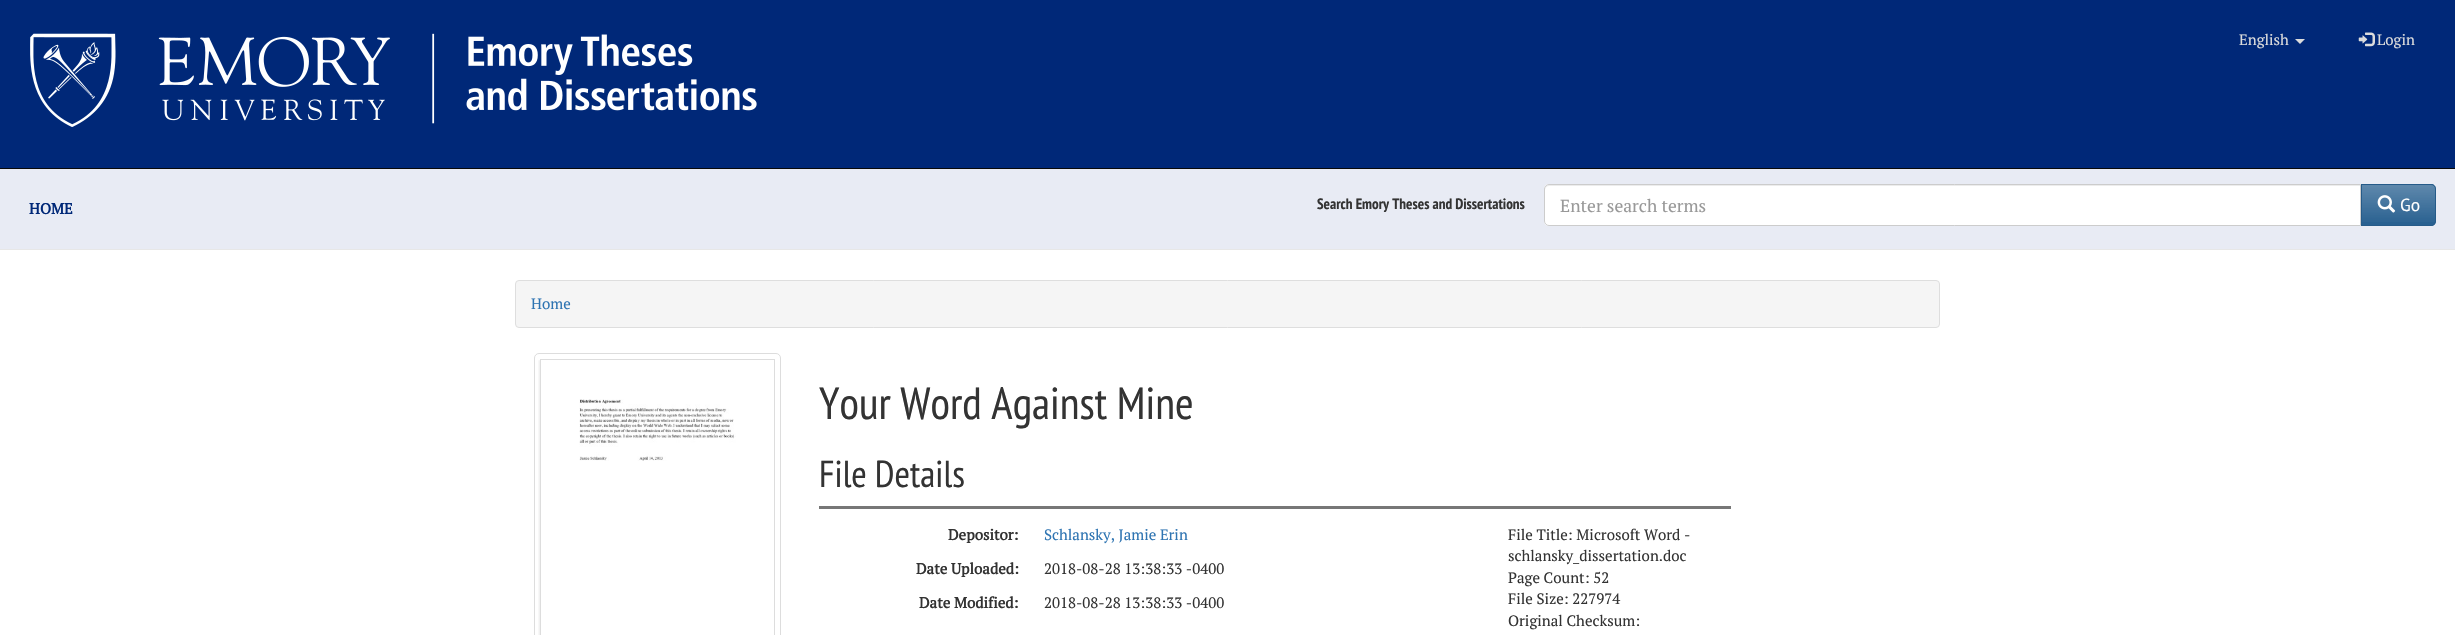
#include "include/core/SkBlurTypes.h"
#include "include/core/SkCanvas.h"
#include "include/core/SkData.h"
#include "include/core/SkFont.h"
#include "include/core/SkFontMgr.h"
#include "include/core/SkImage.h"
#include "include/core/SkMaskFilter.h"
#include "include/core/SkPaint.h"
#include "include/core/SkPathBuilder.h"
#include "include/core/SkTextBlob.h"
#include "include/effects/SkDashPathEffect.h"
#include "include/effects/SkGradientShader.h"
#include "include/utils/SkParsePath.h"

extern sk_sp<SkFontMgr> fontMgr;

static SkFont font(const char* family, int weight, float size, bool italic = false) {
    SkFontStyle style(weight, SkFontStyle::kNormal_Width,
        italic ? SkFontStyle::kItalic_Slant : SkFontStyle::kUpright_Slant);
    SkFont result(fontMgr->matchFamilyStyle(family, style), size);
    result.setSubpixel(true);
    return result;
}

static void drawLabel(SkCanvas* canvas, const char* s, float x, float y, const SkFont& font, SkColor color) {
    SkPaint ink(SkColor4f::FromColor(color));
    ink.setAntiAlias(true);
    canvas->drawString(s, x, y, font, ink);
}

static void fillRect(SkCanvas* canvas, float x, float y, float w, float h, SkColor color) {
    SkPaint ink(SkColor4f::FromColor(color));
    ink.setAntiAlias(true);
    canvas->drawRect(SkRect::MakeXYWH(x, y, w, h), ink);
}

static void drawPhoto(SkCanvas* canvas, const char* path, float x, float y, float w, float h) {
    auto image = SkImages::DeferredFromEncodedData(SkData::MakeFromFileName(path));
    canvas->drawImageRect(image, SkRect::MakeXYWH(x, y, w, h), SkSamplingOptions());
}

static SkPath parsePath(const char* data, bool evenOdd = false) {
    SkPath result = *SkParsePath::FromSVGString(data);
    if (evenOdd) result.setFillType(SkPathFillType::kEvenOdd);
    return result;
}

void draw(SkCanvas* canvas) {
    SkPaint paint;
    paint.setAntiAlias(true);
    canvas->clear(0xFFFFFFFF);
    fillRect(canvas, 0, 0, 2455, 168, 0xFF002878);
    fillRect(canvas, 0, 168, 2455, 1, 0xFF090909);
    drawPhoto(canvas, "assets/img1.png", 30, 33, 727, 94);
    SkFont font1 = font("PT Serif", 400, 15);
    drawLabel(canvas, "English", 2239, 45, font1, 0xFFDCDCDC);
    paint.setColor(0xFFDCDCDC);
    canvas->drawPath(parsePath("M2295 39H2305L2300 44Z"), paint);
    drawPhoto(canvas, "assets/img2.png", 2358, 32, 17, 15);
    drawLabel(canvas, "Login", 2377, 45, font1, 0xFFDCDCDC);
    fillRect(canvas, 0, 169, 2455, 80, 0xFFE8EBF4);
    fillRect(canvas, 0, 249, 2455, 1, 0xFFE7E7E7);
    SkFont font2 = font("PT Serif", 700, 15);
    drawLabel(canvas, "HOME", 29, 214, font2, 0xFF002878);
    SkFont font3 = font("PT Sans Narrow", 700, 15);
    drawLabel(canvas, "Search Emory Theses and Dissertations", 1317, 209, font3, 0xFF333333);
    paint.setColor(0xFFFFFFFF);
    canvas->drawPath(parsePath("M1549 184H2361V226H1549C1546 226 1544 224 1544 221V189C1544 186 1546 184 1549 184Z"), paint);
    paint.setColor(0xFFECECEC);
    canvas->drawPath(parsePath("M1549 186H2360V185H1549C1546 185 1545 187 1545 190C1545 188 1547 186 1549 186Z"), paint);
    paint.setStroke(true);
    paint.setStrokeWidth(1);
    paint.setColor(0xFFCCCCCC);
    canvas->drawPath(parsePath("M1549 184.5H2360.5V225.5H1549C1546.5 225.5 1544.5 223.5 1544.5 221V189C1544.5 186.5 1546.5 184.5 1549 184.5Z"), paint);
    SkFont font4 = font("PT Serif", 400, 17.5f);
    drawLabel(canvas, "Enter search terms", 1560, 212, font4, 0xFF999999);
    paint.setStroke(false);
    paint.setColor(0xFF286090);
    canvas->drawPath(parsePath("M2361 184H2431C2434 184 2436 186 2436 189V221C2436 224 2434 226 2431 226H2361Z"), paint);
    canvas->save();
    canvas->clipPath(parsePath("M2361 184H2431C2434 184 2436 186 2436 189V221C2436 224 2434 226 2431 226H2361Z"), true);
    {
        const SkColor colors[] = {0x40FFFFFF, 0x00FFFFFF};
        const float stops[] = {0, 1};
        const SkPoint ends[] = {{2399, 185}, {2399, 225}};
        paint.setShader(SkGradientShader::MakeLinear(ends, colors, stops, 2, SkTileMode::kClamp));
        paint.setAlpha(255);
    }
    canvas->drawRect(SkRect::MakeXYWH(2362, 185, 74, 37), paint);
    canvas->restore();
    paint.setStroke(true);
    paint.setShader(nullptr);
    paint.setColor(0xFF265B89);
    canvas->drawPath(parsePath("M2361.5 184.5H2431C2433.5 184.5 2435.5 186.5 2435.5 189V221C2435.5 223.5 2433.5 225.5 2431 225.5H2361.5Z"), paint);
    drawPhoto(canvas, "assets/img3.png", 2377, 195, 19, 18);
    SkFont font5 = font("PT Sans", 400, 17.5f);
    drawLabel(canvas, "Go", 2400, 211, font5, 0xFFFFFFFF);
    paint.setStroke(false);
    paint.setColor(0xFFF5F5F5);
    canvas->drawRoundRect(SkRect::MakeXYWH(515.5f, 280.5f, 1424, 47), 3.5f, 3.5f, paint);
    paint.setStroke(true);
    paint.setColor(0xFFDEDEDE);
    canvas->drawRoundRect(SkRect::MakeXYWH(515.5f, 280.5f, 1424, 47), 3.5f, 3.5f, paint);
    drawLabel(canvas, "Home", 531, 309, font1, 0xFF2E74B2);
    paint.setColor(0xFFDDDDDD);
    canvas->drawRoundRect(SkRect::MakeXYWH(534.5f, 353.5f, 246, 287), 4.5f, 4.5f, paint);
    canvas->save();
    canvas->clipRect(SkRect::MakeXYWH(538, 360, 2, 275));
    paint.setStroke(false);
    paint.setColor(0x14000000);
    paint.setMaskFilter(SkMaskFilter::MakeBlur(kNormal_SkBlurStyle, 1));
    canvas->drawRect(SkRect::MakeXYWH(539, 360, 235, 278), paint);
    paint.setMaskFilter(nullptr);
    canvas->restore();
    paint.setStroke(true);
    paint.setColor(0xFFDDDDDD);
    canvas->drawRect(SkRect::MakeXYWH(540.5f, 359.5f, 234, 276), paint);
    drawPhoto(canvas, "assets/img4.png", 579, 399, 157, 62);
    SkFont font6 = font("PT Sans Narrow", 400, 45);
    drawLabel(canvas, "Your Word Against Mine", 819, 419, font6, 0xFF333333);
    SkFont font7 = font("PT Sans Narrow", 400, 37.5f);
    drawLabel(canvas, "File Details", 819, 487, font7, 0xFF333333);
    fillRect(canvas, 819, 506, 912, 3, 0xFF777777);
    drawLabel(canvas, "Depositor:", 948, 540, font2, 0xFF333333);
    drawLabel(canvas, "Schlansky, Jamie Erin", 1044, 540, font1, 0xFF2E74B2);
    drawLabel(canvas, "File Title: Microsoft Word -", 1508, 540, font1, 0xFF333333);
    drawLabel(canvas, "schlansky_dissertation.doc", 1508, 561, font1, 0xFF333333);
    drawLabel(canvas, "Page Count: 52", 1508, 583, font1, 0xFF333333);
    drawLabel(canvas, "File Size: 227974", 1508, 604, font1, 0xFF333333);
    drawLabel(canvas, "Original Checksum:", 1508, 626, font1, 0xFF333333);
    drawLabel(canvas, "Date Uploaded:", 916, 574, font2, 0xFF333333);
    drawLabel(canvas, "2018-08-28 13:38:33 -0400", 1044, 574, font1, 0xFF333333);
    drawLabel(canvas, "Date Modified:", 919, 608, font2, 0xFF333333);
    drawLabel(canvas, "2018-08-28 13:38:33 -0400", 1044, 608, font1, 0xFF333333);
}
